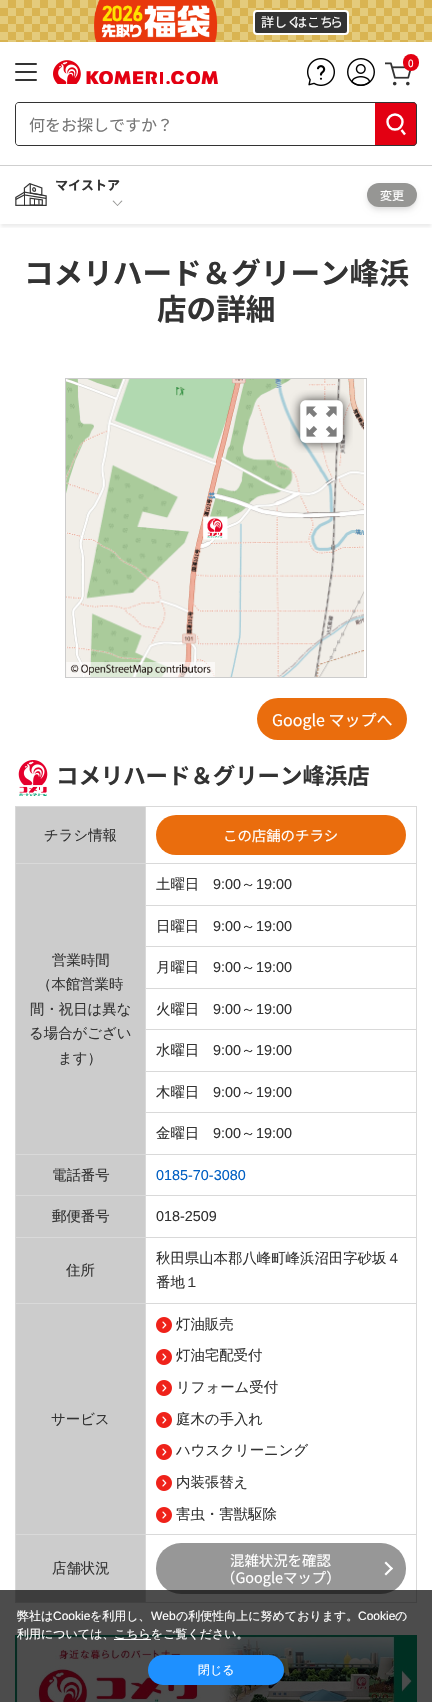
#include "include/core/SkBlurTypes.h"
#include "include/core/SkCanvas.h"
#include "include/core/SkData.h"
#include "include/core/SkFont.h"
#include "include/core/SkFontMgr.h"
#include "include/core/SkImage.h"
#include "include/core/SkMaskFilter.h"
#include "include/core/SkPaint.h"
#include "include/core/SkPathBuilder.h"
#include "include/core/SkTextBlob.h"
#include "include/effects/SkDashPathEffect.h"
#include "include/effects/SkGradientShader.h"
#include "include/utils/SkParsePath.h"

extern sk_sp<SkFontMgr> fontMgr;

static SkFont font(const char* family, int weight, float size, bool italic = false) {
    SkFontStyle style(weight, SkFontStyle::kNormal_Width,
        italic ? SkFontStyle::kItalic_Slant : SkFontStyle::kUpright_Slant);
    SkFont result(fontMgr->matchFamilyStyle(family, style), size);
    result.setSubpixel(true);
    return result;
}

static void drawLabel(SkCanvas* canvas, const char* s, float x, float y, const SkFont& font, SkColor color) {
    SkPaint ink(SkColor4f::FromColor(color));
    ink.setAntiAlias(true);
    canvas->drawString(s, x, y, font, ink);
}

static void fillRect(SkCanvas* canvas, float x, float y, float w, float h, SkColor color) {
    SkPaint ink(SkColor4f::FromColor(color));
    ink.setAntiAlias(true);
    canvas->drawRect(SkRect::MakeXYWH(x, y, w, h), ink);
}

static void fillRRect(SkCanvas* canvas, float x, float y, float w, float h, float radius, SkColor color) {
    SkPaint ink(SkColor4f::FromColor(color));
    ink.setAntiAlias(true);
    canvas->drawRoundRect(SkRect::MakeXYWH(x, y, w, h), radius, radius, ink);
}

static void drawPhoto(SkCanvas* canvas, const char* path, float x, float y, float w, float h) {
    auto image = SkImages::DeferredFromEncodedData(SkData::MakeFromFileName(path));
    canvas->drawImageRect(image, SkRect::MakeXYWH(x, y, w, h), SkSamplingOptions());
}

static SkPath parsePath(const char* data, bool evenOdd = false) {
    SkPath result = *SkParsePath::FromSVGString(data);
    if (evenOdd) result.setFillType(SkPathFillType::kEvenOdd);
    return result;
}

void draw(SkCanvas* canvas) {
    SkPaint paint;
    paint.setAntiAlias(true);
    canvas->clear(0xFFFFFFFF);
    drawPhoto(canvas, "assets/img1.png", 0, 0, 432, 42);
    drawPhoto(canvas, "assets/img2.png", 94, 0, 124, 42);
    paint.setColor(0xFF333333);
    canvas->drawRoundRect(SkRect::MakeXYWH(254, 11, 94, 23), 3, 3, paint);
    paint.setStroke(true);
    paint.setStrokeWidth(2);
    paint.setColor(0xFFFFFFFF);
    canvas->drawRoundRect(SkRect::MakeXYWH(254, 11, 94, 23), 3, 3, paint);
    SkFont font1 = font("Noto Sans JP", 400, 13);
    drawLabel(canvas, "詳しく", 261, 27, font1, 0xFFFFFFFF);
    drawLabel(canvas, "はこち", 294, 27, font1, 0xFFFFFFFF);
    drawLabel(canvas, "ら", 330, 27, font1, 0xFFFFFFFF);
    fillRRect(canvas, 15, 63, 22, 2, 1, 0xFF333333);
    fillRRect(canvas, 15, 71, 22, 2, 1, 0xFF333333);
    fillRRect(canvas, 15, 79, 22, 2, 1, 0xFF333333);
    drawPhoto(canvas, "assets/img3.png", 53, 60, 165, 24);
    drawPhoto(canvas, "assets/img4.png", 307, 58, 28, 28);
    drawPhoto(canvas, "assets/img5.png", 347, 58, 28, 28);
    drawPhoto(canvas, "assets/img6.png", 385, 62, 27, 24);
    fillRRect(canvas, 403, 54, 16, 17, 8, 0xFFE30012);
    SkFont font2 = font("Noto Sans JP", 400, 10);
    drawLabel(canvas, "0", 408, 67, font2, 0xFFFFFFFF);
    paint.setStroke(false);
    paint.setColor(0xFF333333);
    canvas->drawPath(parsePath("M19 102H375V146H19C17 146 15 144 15 142V106C15 104 17 102 19 102ZM19 103H375V145H19C17 145 16 144 16 142V106C16 104 17 103 19 103Z", true), paint);
    paint.setColor(0xFFFFFFFF);
    canvas->drawPath(parsePath("M19 103H375V145H19C17.5 145 16 143.5 16 142V106C16 104.5 17.5 103 19 103Z"), paint);
    SkFont font3 = font("Noto Sans JP", 400, 16);
    drawLabel(canvas, "何をお探しですか？", 29, 131, font3, 0xFF757575);
    paint.setColor(0xFFE30012);
    canvas->drawPath(parsePath("M375 102H413C415 102 417 104 417 106V142C417 144 415 146 413 146H375Z"), paint);
    paint.setColor(0xFF333333);
    canvas->drawPath(parsePath("M375 102H413C415 102 417 104 417 106V142C417 144 415 146 413 146H375ZM375 103H413C415 103 416 104 416 106V142C416 144 415 145 413 145H375Z", true), paint);
    paint.setStroke(true);
    paint.setStrokeWidth(2.4f);
    paint.setColor(0xFFFFFFFF);
    canvas->drawCircle(395, 122, 7.5f, paint);
    canvas->drawPath(parsePath("M401.5 130L405 134.5"), paint);
    canvas->save();
    canvas->clipRect(SkRect::MakeXYWH(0, 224, 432, 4));
    paint.setStroke(false);
    paint.setColor(0x12000000);
    paint.setMaskFilter(SkMaskFilter::MakeBlur(kNormal_SkBlurStyle, 1.5f));
    canvas->drawRect(SkRect::MakeXYWH(1, 170, 430, 57), paint);
    paint.setMaskFilter(nullptr);
    canvas->restore();
    fillRect(canvas, 0, 165, 432, 1, 0xFFCFCFCF);
    drawPhoto(canvas, "assets/img7.png", 15, 183, 32, 23);
    SkFont font4 = font("Noto Sans JP", 700, 13);
    drawLabel(canvas, "マイストア", 55, 190, font4, 0xFF333333);
    paint.setColor(0x0F000000);
    paint.setMaskFilter(SkMaskFilter::MakeBlur(kNormal_SkBlurStyle, 2));
    canvas->drawRoundRect(SkRect::MakeXYWH(368, 186, 48, 22), 11, 11, paint);
    paint.setMaskFilter(nullptr);
    paint.setColor(0x1A000000);
    paint.setMaskFilter(SkMaskFilter::MakeBlur(kNormal_SkBlurStyle, 3));
    canvas->drawRoundRect(SkRect::MakeXYWH(368, 188, 48, 22), 11, 11, paint);
    paint.setMaskFilter(nullptr);
    fillRRect(canvas, 367, 183, 50, 24, 12, 0xFF969694);
    SkFont font5 = font("Noto Sans JP", 400, 12);
    drawLabel(canvas, "変更", 380, 200, font5, 0xFFFFFFFF);
    paint.setColor(0xFF969694);
    canvas->drawPath(parsePath("M122.5 201L117.5 206L117 205.5L121.5 200.5Z"), paint);
    canvas->drawPath(parsePath("M118 205.5L117.5 206L112.5 201L113.5 200.5Z"), paint);
    SkFont font6 = font("Noto Sans JP", 700, 29.6f);
    drawLabel(canvas, "コメリハード＆グリーン峰浜", 24, 284, font6, 0xFF333333);
    drawLabel(canvas, "店の詳細", 157, 320, font6, 0xFF333333);
    paint.setStroke(true);
    paint.setStrokeWidth(1);
    paint.setColor(0xFFCCCCCC);
    canvas->drawRect(SkRect::MakeXYWH(65.5f, 378.5f, 301, 299), paint);
    drawPhoto(canvas, "assets/img8.png", 66, 379, 298, 298);
    drawPhoto(canvas, "assets/img9.png", 290, 390, 63, 63);
    drawPhoto(canvas, "assets/img10.png", 66, 662, 149, 15);
    fillRRect(canvas, 257, 698, 150, 42, 21, 0xFFEA6D0D);
    drawLabel(canvas, "Google マップへ", 272, 726, font3, 0xFFFFFFFF);
    drawPhoto(canvas, "assets/img11.png", 18, 760, 30, 36);
    SkFont font7 = font("Noto Sans JP", 700, 22.4f);
    drawLabel(canvas, "コメリハード＆グリーン峰浜店", 56, 784, font7, 0xFF333333);
    fillRect(canvas, 416, 806, 1, 797, 0xFFD9D9D9);
    fillRect(canvas, 15, 1602, 402, 1, 0xFFD9D9D9);
    fillRect(canvas, 16, 807, 129, 56, 0xFFCCCCCC);
    fillRect(canvas, 145, 806, 272, 1, 0xFFD9D9D9);
    fillRect(canvas, 145, 863, 272, 1, 0xFFD9D9D9);
    fillRect(canvas, 145, 905, 272, 1, 0xFFD9D9D9);
    fillRect(canvas, 145, 946, 272, 1, 0xFFD9D9D9);
    fillRect(canvas, 145, 988, 272, 1, 0xFFD9D9D9);
    fillRect(canvas, 145, 1029, 272, 1, 0xFFD9D9D9);
    fillRect(canvas, 145, 1071, 272, 1, 0xFFD9D9D9);
    fillRect(canvas, 145, 1112, 272, 1, 0xFFD9D9D9);
    fillRect(canvas, 145, 1154, 272, 1, 0xFFD9D9D9);
    fillRect(canvas, 145, 1195, 272, 1, 0xFFD9D9D9);
    fillRect(canvas, 145, 1237, 272, 1, 0xFFD9D9D9);
    fillRect(canvas, 145, 1303, 272, 1, 0xFFD9D9D9);
    fillRect(canvas, 145, 1534, 272, 1, 0xFFD9D9D9);
    fillRect(canvas, 145, 1534, 1, 69, 0xFFD9D9D9);
    fillRect(canvas, 15, 1534, 131, 1, 0xFFD9D9D9);
    fillRect(canvas, 145, 1303, 1, 232, 0xFFD9D9D9);
    fillRect(canvas, 15, 1303, 131, 1, 0xFFD9D9D9);
    fillRect(canvas, 145, 1237, 1, 67, 0xFFD9D9D9);
    fillRect(canvas, 15, 1237, 131, 1, 0xFFD9D9D9);
    fillRect(canvas, 145, 1195, 1, 43, 0xFFD9D9D9);
    fillRect(canvas, 15, 1195, 131, 1, 0xFFD9D9D9);
    fillRect(canvas, 145, 1154, 1, 42, 0xFFD9D9D9);
    fillRect(canvas, 15, 1154, 131, 1, 0xFFD9D9D9);
    fillRect(canvas, 145, 1112, 1, 43, 0xFFD9D9D9);
    fillRect(canvas, 145, 1071, 1, 42, 0xFFD9D9D9);
    fillRect(canvas, 145, 1029, 1, 43, 0xFFD9D9D9);
    fillRect(canvas, 145, 988, 1, 42, 0xFFD9D9D9);
    fillRect(canvas, 145, 946, 1, 43, 0xFFD9D9D9);
    fillRect(canvas, 145, 905, 1, 42, 0xFFD9D9D9);
    fillRect(canvas, 145, 863, 1, 43, 0xFFD9D9D9);
    fillRect(canvas, 15, 863, 131, 1, 0xFFD9D9D9);
    fillRect(canvas, 145, 806, 1, 58, 0xFFD9D9D9);
    fillRect(canvas, 15, 806, 131, 1, 0xFFD9D9D9);
    fillRect(canvas, 15, 1534, 1, 69, 0xFFD9D9D9);
    fillRect(canvas, 15, 1303, 1, 232, 0xFFD9D9D9);
    fillRect(canvas, 15, 1237, 1, 67, 0xFFD9D9D9);
    fillRect(canvas, 15, 1195, 1, 43, 0xFFD9D9D9);
    fillRect(canvas, 15, 1154, 1, 42, 0xFFD9D9D9);
    fillRect(canvas, 15, 863, 1, 292, 0xFFD9D9D9);
    fillRect(canvas, 15, 806, 1, 58, 0xFFD9D9D9);
    SkFont font8 = font("WenQuanYi Zen Hei", 500, 14.4f);
    drawLabel(canvas, "チラシ情報", 44, 840, font8, 0xFF333333);
    fillRRect(canvas, 156, 815, 250, 40, 20, 0xFFEA6D0D);
    SkFont font9 = font("Noto Sans JP", 400, 14.4f);
    drawLabel(canvas, "この店舗のチラシ", 223, 841, font9, 0xFFFFFFFF);
    drawLabel(canvas, "土曜日", 156, 889, font8, 0xFF333333);
    SkFont font10 = font("Liberation Sans", 400, 14.4f);
    drawLabel(canvas, "9:00", 213, 889, font10, 0xFF333333);
    drawLabel(canvas, "～", 241, 889, font8, 0xFF333333);
    drawLabel(canvas, "19:00", 256, 889, font10, 0xFF333333);
    fillRect(canvas, 16, 864, 129, 290, 0xFFCCCCCC);
    drawLabel(canvas, "営業時間", 52, 965, font8, 0xFF333333);
    drawLabel(canvas, "（本館営業時", 37, 989, font8, 0xFF333333);
    drawLabel(canvas, "間・祝日は異な", 30, 1014, font8, 0xFF333333);
    drawLabel(canvas, "る場合がござい", 29, 1038, font8, 0xFF333333);
    drawLabel(canvas, "ます）", 58, 1063, font8, 0xFF333333);
    drawLabel(canvas, "日曜日", 156, 931, font8, 0xFF333333);
    drawLabel(canvas, "9:00", 213, 931, font10, 0xFF333333);
    drawLabel(canvas, "～", 241, 931, font8, 0xFF333333);
    drawLabel(canvas, "19:00", 256, 931, font10, 0xFF333333);
    drawLabel(canvas, "月曜日", 156, 972, font8, 0xFF333333);
    drawLabel(canvas, "9:00", 213, 972, font10, 0xFF333333);
    drawLabel(canvas, "～", 241, 972, font8, 0xFF333333);
    drawLabel(canvas, "19:00", 256, 972, font10, 0xFF333333);
    drawLabel(canvas, "火曜日", 156, 1014, font8, 0xFF333333);
    drawLabel(canvas, "9:00", 213, 1014, font10, 0xFF333333);
    drawLabel(canvas, "～", 241, 1014, font8, 0xFF333333);
    drawLabel(canvas, "19:00", 256, 1014, font10, 0xFF333333);
    drawLabel(canvas, "水曜日", 156, 1055, font8, 0xFF333333);
    drawLabel(canvas, "9:00", 213, 1055, font10, 0xFF333333);
    drawLabel(canvas, "～", 241, 1055, font8, 0xFF333333);
    drawLabel(canvas, "19:00", 256, 1055, font10, 0xFF333333);
    drawLabel(canvas, "木曜日", 156, 1097, font8, 0xFF333333);
    drawLabel(canvas, "9:00", 213, 1097, font10, 0xFF333333);
    drawLabel(canvas, "～", 241, 1097, font8, 0xFF333333);
    drawLabel(canvas, "19:00", 256, 1097, font10, 0xFF333333);
    drawLabel(canvas, "金曜日", 156, 1138, font8, 0xFF333333);
    drawLabel(canvas, "9:00", 213, 1138, font10, 0xFF333333);
    drawLabel(canvas, "～", 241, 1138, font8, 0xFF333333);
    drawLabel(canvas, "19:00", 256, 1138, font10, 0xFF333333);
    fillRect(canvas, 16, 1155, 129, 40, 0xFFCCCCCC);
    drawLabel(canvas, "電話番号", 52, 1180, font8, 0xFF333333);
    drawLabel(canvas, "0185-70-3080", 156, 1180, font10, 0xFF005FC3);
    fillRect(canvas, 16, 1196, 129, 41, 0xFFCCCCCC);
    drawLabel(canvas, "郵便番号", 52, 1221, font8, 0xFF333333);
    drawLabel(canvas, "018-2509", 156, 1221, font10, 0xFF333333);
    fillRect(canvas, 16, 1238, 129, 65, 0xFFCCCCCC);
    drawLabel(canvas, "住所", 66, 1275, font8, 0xFF333333);
    drawLabel(canvas, "秋田県山本郡八峰町峰浜沼田字砂坂４", 156, 1263, font8, 0xFF333333);
    drawLabel(canvas, "番地１", 156, 1287, font8, 0xFF333333);
    fillRect(canvas, 16, 1304, 129, 230, 0xFFCCCCCC);
    drawLabel(canvas, "サービス", 51, 1424, font8, 0xFF333333);
    drawPhoto(canvas, "assets/img12.png", 156, 1317, 16, 16);
    drawLabel(canvas, "灯油販売", 176, 1329, font8, 0xFF333333);
    drawPhoto(canvas, "assets/img12.png", 156, 1349, 16, 16);
    drawLabel(canvas, "灯油宅配受付", 176, 1360, font8, 0xFF333333);
    drawPhoto(canvas, "assets/img12.png", 156, 1380, 16, 16);
    drawLabel(canvas, "リフォーム受付", 176, 1392, font8, 0xFF333333);
    drawPhoto(canvas, "assets/img12.png", 156, 1412, 16, 16);
    drawLabel(canvas, "庭木の手入れ", 176, 1424, font8, 0xFF333333);
    drawPhoto(canvas, "assets/img12.png", 156, 1444, 16, 16);
    drawLabel(canvas, "ハウスクリーニング", 176, 1455, font8, 0xFF333333);
    drawPhoto(canvas, "assets/img12.png", 156, 1475, 16, 16);
    drawLabel(canvas, "内装張替え", 176, 1487, font8, 0xFF333333);
    drawPhoto(canvas, "assets/img12.png", 156, 1507, 16, 16);
    drawLabel(canvas, "害虫・害獣駆除", 176, 1519, font8, 0xFF333333);
    fillRect(canvas, 16, 1535, 129, 67, 0xFFCCCCCC);
    drawLabel(canvas, "店舗状況", 52, 1573, font8, 0xFF333333);
    fillRRect(canvas, 156, 1543, 250, 51, 25, 0xFF979797);
    drawLabel(canvas, "混雑状況を確認", 230, 1566, font9, 0xFFFFFFFF);
    paint.setStroke(false);
    paint.setColor(0xFFFFFFFF);
    canvas->drawPath(parsePath("M386 1561.5L393 1568.5L391.5 1570L384.5 1563Z"), paint);
    canvas->drawPath(parsePath("M391.5 1567L393 1568.5L386 1575.5L384.5 1574Z"), paint);
    drawLabel(canvas, "（Googleマップ）", 221, 1583, font9, 0xFFFFFFFF);
    drawPhoto(canvas, "assets/img13.png", 15, 1635, 402, 67);
    fillRect(canvas, 0, 1590, 432, 112, 0xB3000000);
    SkFont font11 = font("WenQuanYi Zen Hei", 500, 12);
    drawLabel(canvas, "弊社は", 17, 1620, font11, 0xFFFFFFFF);
    SkFont font12 = font("Liberation Sans", 400, 12);
    drawLabel(canvas, "Cookie", 53, 1620, font12, 0xFFFFFFFF);
    drawLabel(canvas, "を利用し、", 90, 1620, font11, 0xFFFFFFFF);
    drawLabel(canvas, "Web", 151, 1620, font12, 0xFFFFFFFF);
    drawLabel(canvas, "の利便性向上に努めております。", 176, 1620, font11, 0xFFFFFFFF);
    drawLabel(canvas, "Cookie", 358, 1620, font12, 0xFFFFFFFF);
    drawLabel(canvas, "の", 395, 1620, font11, 0xFFFFFFFF);
    drawLabel(canvas, "利用については、", 17, 1638, font11, 0xFFFFFFFF);
    fillRect(canvas, 114, 1639, 37, 1, 0xFFFFFFFF);
    drawLabel(canvas, "こちらをご覧ください。", 114, 1638, font11, 0xFFFFFFFF);
    fillRRect(canvas, 148, 1655, 136, 30, 15, 0xFF1E90FF);
    drawLabel(canvas, "閉じる", 198, 1674, font11, 0xFFFFFFFF);
}
